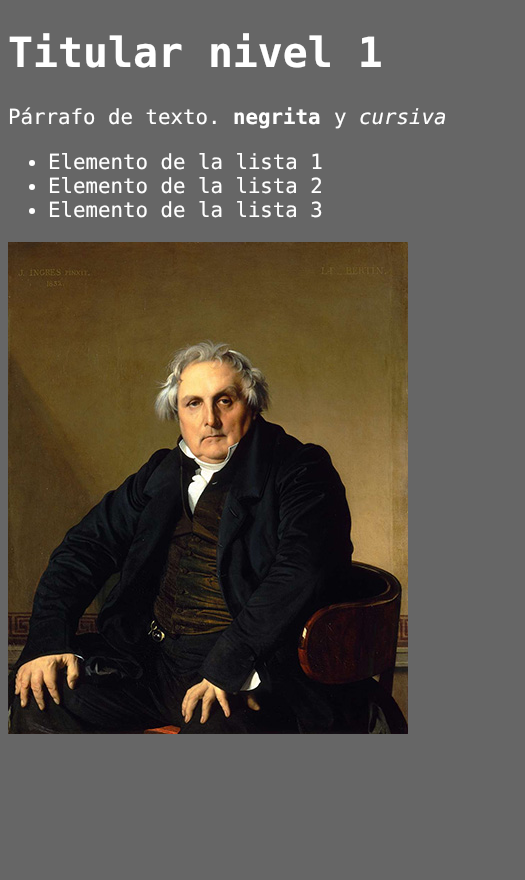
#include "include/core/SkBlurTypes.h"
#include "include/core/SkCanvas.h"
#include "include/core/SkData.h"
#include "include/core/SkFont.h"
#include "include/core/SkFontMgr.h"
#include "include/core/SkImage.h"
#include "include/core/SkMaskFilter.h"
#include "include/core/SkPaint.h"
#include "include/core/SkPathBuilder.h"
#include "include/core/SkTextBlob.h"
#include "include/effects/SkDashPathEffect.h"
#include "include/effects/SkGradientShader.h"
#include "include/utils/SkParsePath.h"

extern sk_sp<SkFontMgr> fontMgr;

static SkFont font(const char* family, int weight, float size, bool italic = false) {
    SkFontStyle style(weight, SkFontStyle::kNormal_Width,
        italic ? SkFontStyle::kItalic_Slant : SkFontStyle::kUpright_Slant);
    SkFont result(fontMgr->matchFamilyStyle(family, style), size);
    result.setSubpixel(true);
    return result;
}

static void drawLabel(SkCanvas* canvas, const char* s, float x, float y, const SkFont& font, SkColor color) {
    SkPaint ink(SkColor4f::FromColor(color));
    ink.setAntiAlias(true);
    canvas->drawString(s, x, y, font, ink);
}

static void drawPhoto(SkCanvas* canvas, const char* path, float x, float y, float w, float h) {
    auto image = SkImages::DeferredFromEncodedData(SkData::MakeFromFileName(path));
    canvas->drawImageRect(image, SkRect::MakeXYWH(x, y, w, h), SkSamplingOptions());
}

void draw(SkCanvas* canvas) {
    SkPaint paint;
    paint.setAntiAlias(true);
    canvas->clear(0xFF666666);
    SkFont font1 = font("DejaVu Sans Mono", 700, 41.5f);
    drawLabel(canvas, "Titular nivel 1", 8, 67, font1, 0xFFFFFFFF);
    SkFont font2 = font("DejaVu Sans Mono", 400, 20.75f);
    drawLabel(canvas, "Párrafo de texto.", 8, 124, font2, 0xFFFFFFFF);
    SkFont font3 = font("DejaVu Sans Mono", 700, 20.75f);
    drawLabel(canvas, "negrita", 233, 124, font3, 0xFFFFFFFF);
    drawLabel(canvas, "y", 334, 124, font2, 0xFFFFFFFF);
    SkFont font4 = font("DejaVu Sans Mono", 400, 20.75f, true);
    drawLabel(canvas, "cursiva", 359, 124, font4, 0xFFFFFFFF);
    paint.setColor(0xFFFFFFFF);
    canvas->drawCircle(32, 163, 3, paint);
    drawLabel(canvas, "Elemento de la lista 1", 48, 169, font2, 0xFFFFFFFF);
    canvas->drawCircle(32, 187, 3, paint);
    drawLabel(canvas, "Elemento de la lista 2", 48, 193, font2, 0xFFFFFFFF);
    canvas->drawCircle(32, 211, 3, paint);
    drawLabel(canvas, "Elemento de la lista 3", 48, 217, font2, 0xFFFFFFFF);
    drawPhoto(canvas, "assets/img1.png", 8, 242, 400, 492);
}
